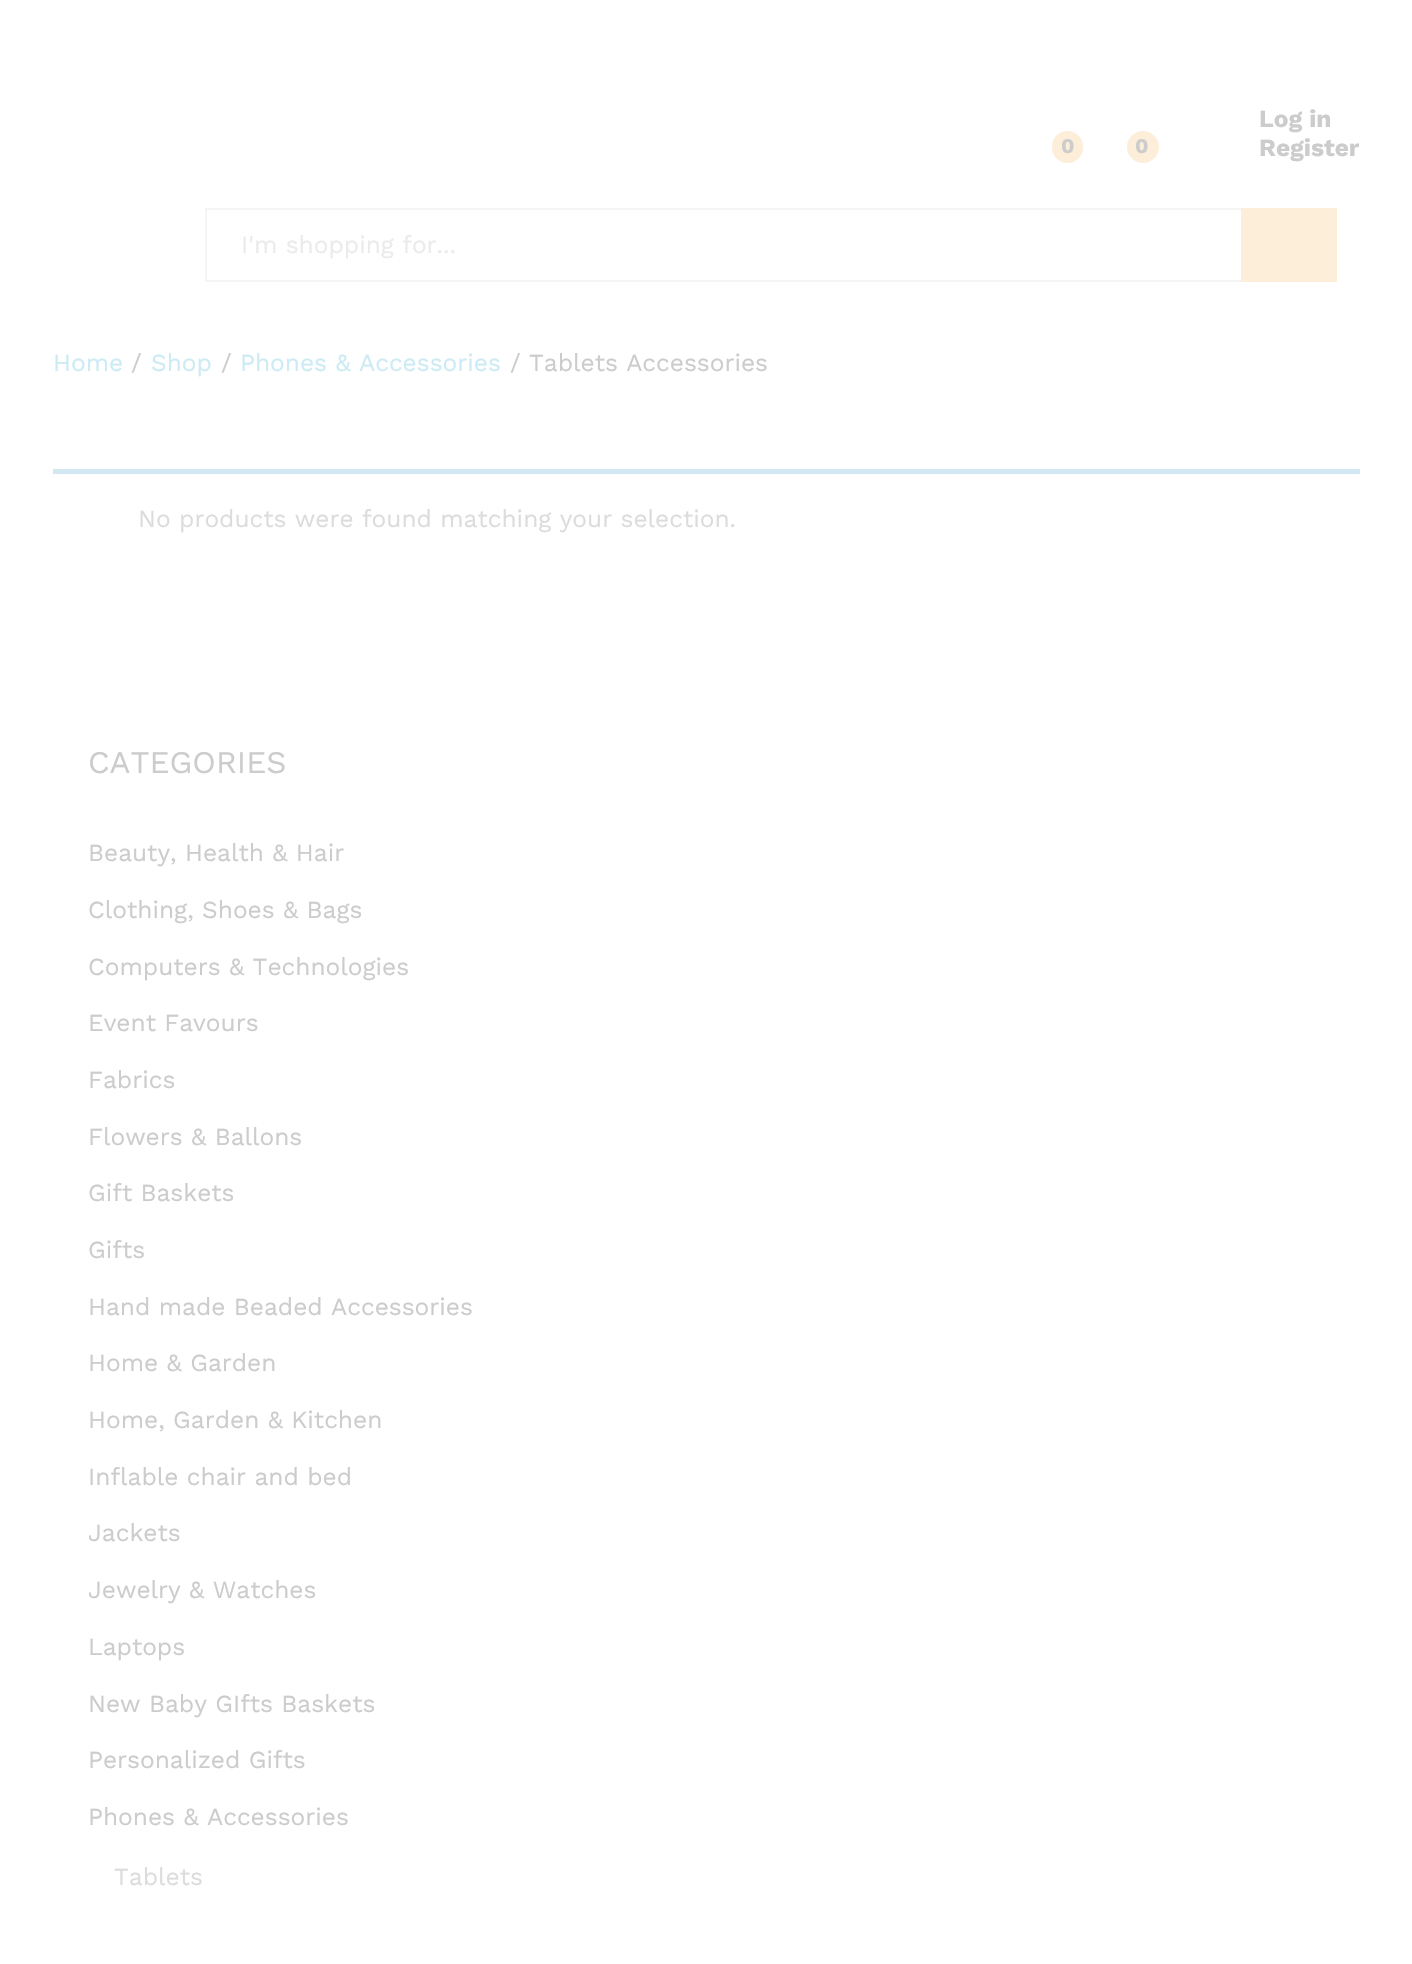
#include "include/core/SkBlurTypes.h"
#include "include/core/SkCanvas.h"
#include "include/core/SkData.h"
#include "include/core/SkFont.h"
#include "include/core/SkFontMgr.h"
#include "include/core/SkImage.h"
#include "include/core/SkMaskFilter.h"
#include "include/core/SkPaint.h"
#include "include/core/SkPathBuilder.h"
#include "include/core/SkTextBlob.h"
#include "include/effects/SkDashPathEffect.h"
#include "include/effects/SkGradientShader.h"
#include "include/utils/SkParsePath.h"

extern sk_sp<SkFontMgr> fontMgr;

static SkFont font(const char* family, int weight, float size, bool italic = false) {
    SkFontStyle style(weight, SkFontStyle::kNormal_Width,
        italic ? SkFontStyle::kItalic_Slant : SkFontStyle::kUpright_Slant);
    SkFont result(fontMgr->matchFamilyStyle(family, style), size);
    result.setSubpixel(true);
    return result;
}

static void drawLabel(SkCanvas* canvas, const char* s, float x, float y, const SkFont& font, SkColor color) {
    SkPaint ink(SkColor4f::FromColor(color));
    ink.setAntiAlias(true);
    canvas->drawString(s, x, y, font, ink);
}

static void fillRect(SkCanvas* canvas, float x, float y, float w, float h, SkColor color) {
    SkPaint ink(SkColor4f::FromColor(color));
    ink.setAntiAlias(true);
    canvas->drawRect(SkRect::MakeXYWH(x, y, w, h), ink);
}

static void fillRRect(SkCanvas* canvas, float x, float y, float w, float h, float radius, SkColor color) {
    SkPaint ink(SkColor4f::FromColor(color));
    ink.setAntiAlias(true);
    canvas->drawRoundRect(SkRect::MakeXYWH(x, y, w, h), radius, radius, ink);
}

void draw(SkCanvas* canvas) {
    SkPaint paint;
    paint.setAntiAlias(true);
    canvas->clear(0xFFFFFFFF);
    fillRRect(canvas, 1052, 131, 31, 32, 15.5f, 0xFFFDEEDA);
    SkFont font1 = font("Work Sans", 700, 21);
    drawLabel(canvas, "0", 1061, 153, font1, 0xFFCCCCCC);
    paint.setColor(0xFFFDEEDA);
    canvas->drawCircle(1143, 147, 16, paint);
    drawLabel(canvas, "0", 1135, 153, font1, 0xFFCCCCCC);
    SkFont font2 = font("Work Sans", 700, 24.5f);
    drawLabel(canvas, "Log in", 1259, 127, font2, 0xFFCCCCCC);
    drawLabel(canvas, "Register", 1259, 156, font2, 0xFFCCCCCC);
    fillRect(canvas, 205, 208, 1036, 2, 0xFFF5F5F5);
    fillRect(canvas, 205, 280, 1036, 2, 0xFFF5F5F5);
    fillRect(canvas, 205, 208, 2, 74, 0xFFF5F5F5);
    SkFont font3 = font("Work Sans", 400, 24.5f);
    drawLabel(canvas, "I'm shopping for...", 241, 253, font3, 0xFFEBEBEB);
    fillRect(canvas, 1241, 208, 96, 74, 0xFFFDEEDA);
    drawLabel(canvas, "Home", 53, 371, font3, 0xFFCCEBF5);
    drawLabel(canvas, "/", 131, 371, font3, 0xFFCCCCCC);
    drawLabel(canvas, "Shop", 151, 371, font3, 0xFFCCEBF5);
    drawLabel(canvas, "/", 221, 371, font3, 0xFFCCCCCC);
    drawLabel(canvas, "Phones & Accessories", 240, 371, font3, 0xFFCCEBF5);
    drawLabel(canvas, "/", 510, 371, font3, 0xFFCCCCCC);
    drawLabel(canvas, "Tablets Accessories", 529, 371, font3, 0xFFCCCCCC);
    fillRect(canvas, 53, 469, 1307, 5, 0xFFD2E7F2);
    drawLabel(canvas, "No products were found matching your selection.", 138, 527, font3, 0xFFDCDCDC);
    SkFont font4 = font("Work Sans", 400, 31.5f);
    drawLabel(canvas, "CATEGORIES", 88, 773, font4, 0xFFCCCCCC);
    drawLabel(canvas, "Beauty, Health & Hair", 88, 861, font3, 0xFFCCCCCC);
    drawLabel(canvas, "Clothing, Shoes & Bags", 88, 918, font3, 0xFFCCCCCC);
    drawLabel(canvas, "Computers & Technologies", 88, 975, font3, 0xFFCCCCCC);
    drawLabel(canvas, "Event Favours", 88, 1031, font3, 0xFFCCCCCC);
    drawLabel(canvas, "Fabrics", 88, 1088, font3, 0xFFCCCCCC);
    drawLabel(canvas, "Flowers & Ballons", 88, 1145, font3, 0xFFCCCCCC);
    drawLabel(canvas, "Gift Baskets", 88, 1201, font3, 0xFFCCCCCC);
    drawLabel(canvas, "Gifts", 88, 1258, font3, 0xFFCCCCCC);
    drawLabel(canvas, "Hand made Beaded Accessories", 88, 1315, font3, 0xFFCCCCCC);
    drawLabel(canvas, "Home & Garden", 88, 1371, font3, 0xFFCCCCCC);
    drawLabel(canvas, "Home, Garden & Kitchen", 88, 1428, font3, 0xFFCCCCCC);
    drawLabel(canvas, "Inflable chair and bed", 88, 1485, font3, 0xFFCCCCCC);
    drawLabel(canvas, "Jackets", 88, 1541, font3, 0xFFCCCCCC);
    drawLabel(canvas, "Jewelry & Watches", 88, 1598, font3, 0xFFCCCCCC);
    drawLabel(canvas, "Laptops", 88, 1655, font3, 0xFFCCCCCC);
    drawLabel(canvas, "New Baby GIfts Baskets", 88, 1712, font3, 0xFFCCCCCC);
    drawLabel(canvas, "Personalized Gifts", 88, 1768, font3, 0xFFCCCCCC);
    drawLabel(canvas, "Phones & Accessories", 88, 1825, font3, 0xFFCCCCCC);
    drawLabel(canvas, "Tablets", 114, 1885, font3, 0xFFDCDCDC);
}
